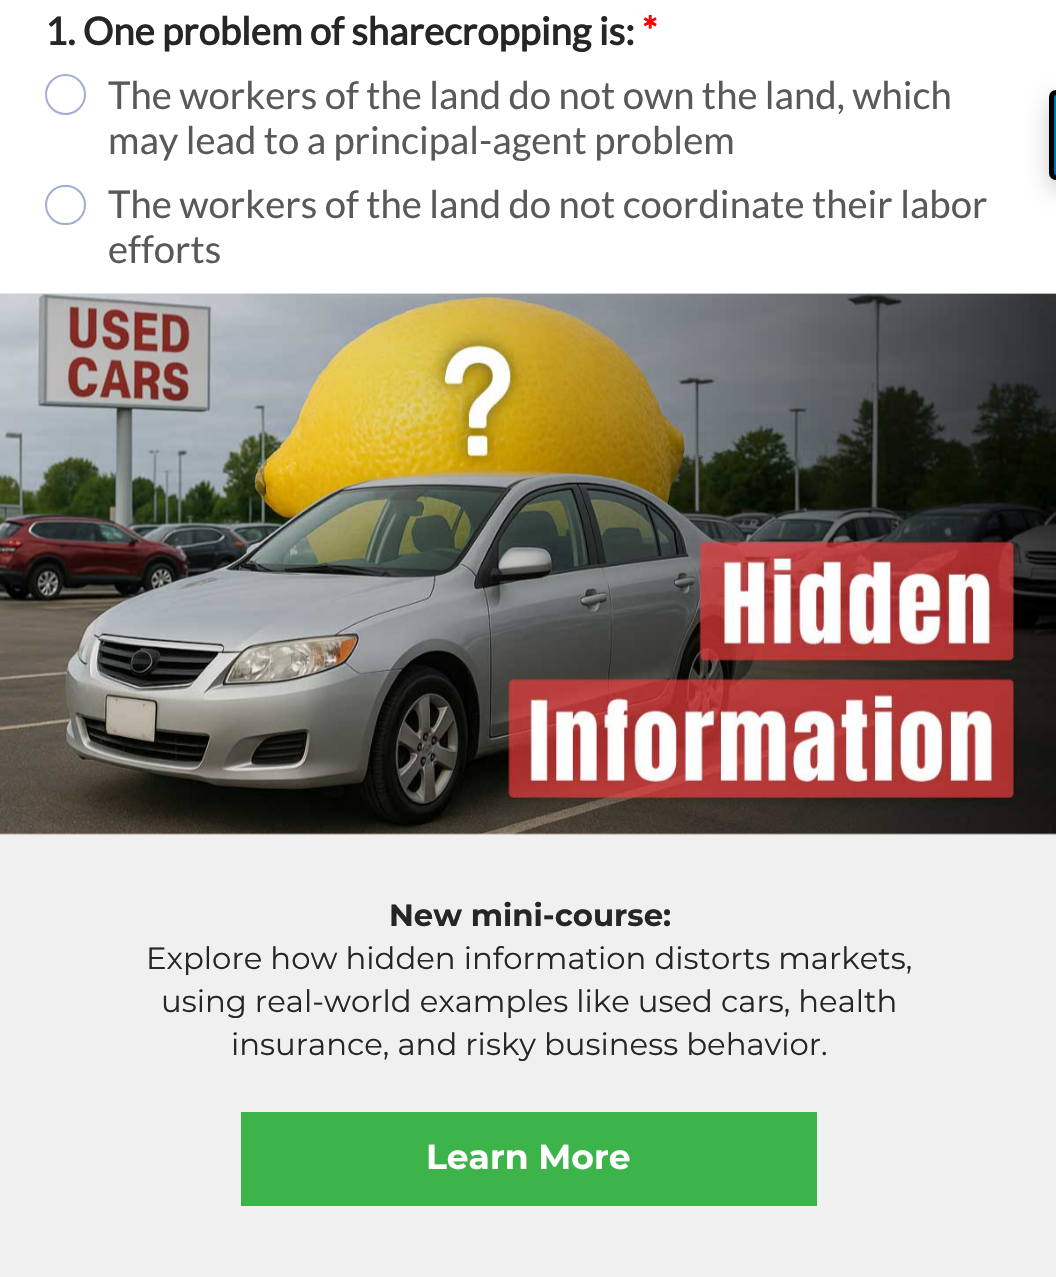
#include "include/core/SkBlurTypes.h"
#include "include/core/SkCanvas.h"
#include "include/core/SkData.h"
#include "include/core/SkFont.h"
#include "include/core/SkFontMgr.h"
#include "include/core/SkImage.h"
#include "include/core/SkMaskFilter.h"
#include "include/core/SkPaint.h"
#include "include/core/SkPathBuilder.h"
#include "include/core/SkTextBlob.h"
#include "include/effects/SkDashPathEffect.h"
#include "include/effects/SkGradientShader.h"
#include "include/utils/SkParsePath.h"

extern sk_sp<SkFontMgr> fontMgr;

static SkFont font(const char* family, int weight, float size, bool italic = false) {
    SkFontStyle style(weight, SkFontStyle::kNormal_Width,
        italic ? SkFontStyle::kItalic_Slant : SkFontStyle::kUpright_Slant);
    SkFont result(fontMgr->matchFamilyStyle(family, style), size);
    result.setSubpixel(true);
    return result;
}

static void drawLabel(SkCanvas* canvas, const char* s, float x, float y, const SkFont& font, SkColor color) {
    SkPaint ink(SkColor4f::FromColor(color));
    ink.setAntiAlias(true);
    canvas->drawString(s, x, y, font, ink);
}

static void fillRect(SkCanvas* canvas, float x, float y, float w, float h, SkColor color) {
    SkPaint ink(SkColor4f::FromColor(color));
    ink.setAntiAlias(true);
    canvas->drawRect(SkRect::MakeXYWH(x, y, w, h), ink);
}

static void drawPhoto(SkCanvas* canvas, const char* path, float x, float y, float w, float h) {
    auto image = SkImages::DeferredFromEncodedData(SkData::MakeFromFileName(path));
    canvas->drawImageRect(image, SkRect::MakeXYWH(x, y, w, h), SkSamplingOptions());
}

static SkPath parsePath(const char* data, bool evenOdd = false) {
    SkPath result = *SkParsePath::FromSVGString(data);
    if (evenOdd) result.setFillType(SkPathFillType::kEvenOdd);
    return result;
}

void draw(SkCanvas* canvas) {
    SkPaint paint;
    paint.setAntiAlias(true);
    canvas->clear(0xFFFFFFFF);
    SkFont font1 = font("Lato", 700, 38.25f);
    drawLabel(canvas, "1. One problem of sharecropping is:", 45, 45, font1, 0xFF262626);
    drawLabel(canvas, "*", 642, 45, font1, 0xFFFF0000);
    paint.setStroke(true);
    paint.setStrokeWidth(2);
    paint.setColor(0xFFA2ADD4);
    canvas->drawCircle(65.5f, 94.5f, 19.5f, paint);
    SkFont font2 = font("Lato", 400, 38.25f);
    drawLabel(canvas, "The workers of the land do not own the land, which", 108, 109, font2, 0xFF58595B);
    drawLabel(canvas, "may lead to a principal-agent problem", 108, 154, font2, 0xFF58595B);
    canvas->drawRoundRect(SkRect::MakeXYWH(46, 186, 39, 38), 19, 19, paint);
    drawLabel(canvas, "The workers of the land do not coordinate their labor", 108, 218, font2, 0xFF58595B);
    drawLabel(canvas, "efforts", 108, 263, font2, 0xFF58595B);
    paint.setStroke(false);
    paint.setColor(0x33000000);
    paint.setMaskFilter(SkMaskFilter::MakeBlur(kNormal_SkBlurStyle, 11));
    canvas->drawRoundRect(SkRect::MakeXYWH(1049, 99, 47, 90), 7, 7, paint);
    paint.setMaskFilter(nullptr);
    paint.setColor(0xFF0073B7);
    canvas->drawPath(parsePath("M1056 92.5H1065.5V177.5H1056C1053.5 177.5 1051.5 175.5 1051.5 173V97C1051.5 94.5 1053.5 92.5 1056 92.5Z"), paint);
    paint.setStroke(true);
    paint.setStrokeWidth(5);
    paint.setColor(0xFF000000);
    canvas->drawPath(parsePath("M1056 92.5H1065.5V177.5H1056C1053.5 177.5 1051.5 175.5 1051.5 173V97C1051.5 94.5 1053.5 92.5 1056 92.5Z"), paint);
    fillRect(canvas, 0, 293, 1056, 984, 0xFFF0F0F0);
    drawPhoto(canvas, "assets/img1.png", 0, 293, 1056, 542);
    SkFont font3 = font("Montserrat", 700, 30.75f);
    drawLabel(canvas, "New mini-course:", 389, 926, font3, 0xFF262626);
    SkFont font4 = font("Montserrat", 400, 30.75f);
    drawLabel(canvas, "Explore how hidden information distorts markets,", 146, 969, font4, 0xFF262626);
    drawLabel(canvas, "using real-world examples like used cars, health", 161, 1012, font4, 0xFF262626);
    drawLabel(canvas, "insurance, and risky business behavior.", 231, 1055, font4, 0xFF262626);
    fillRect(canvas, 241, 1112, 576, 94, 0xFF3DB44A);
    SkFont font5 = font("Montserrat", 700, 34.5f);
    drawLabel(canvas, "Learn More", 426, 1169, font5, 0xFFFFFFFF);
}
